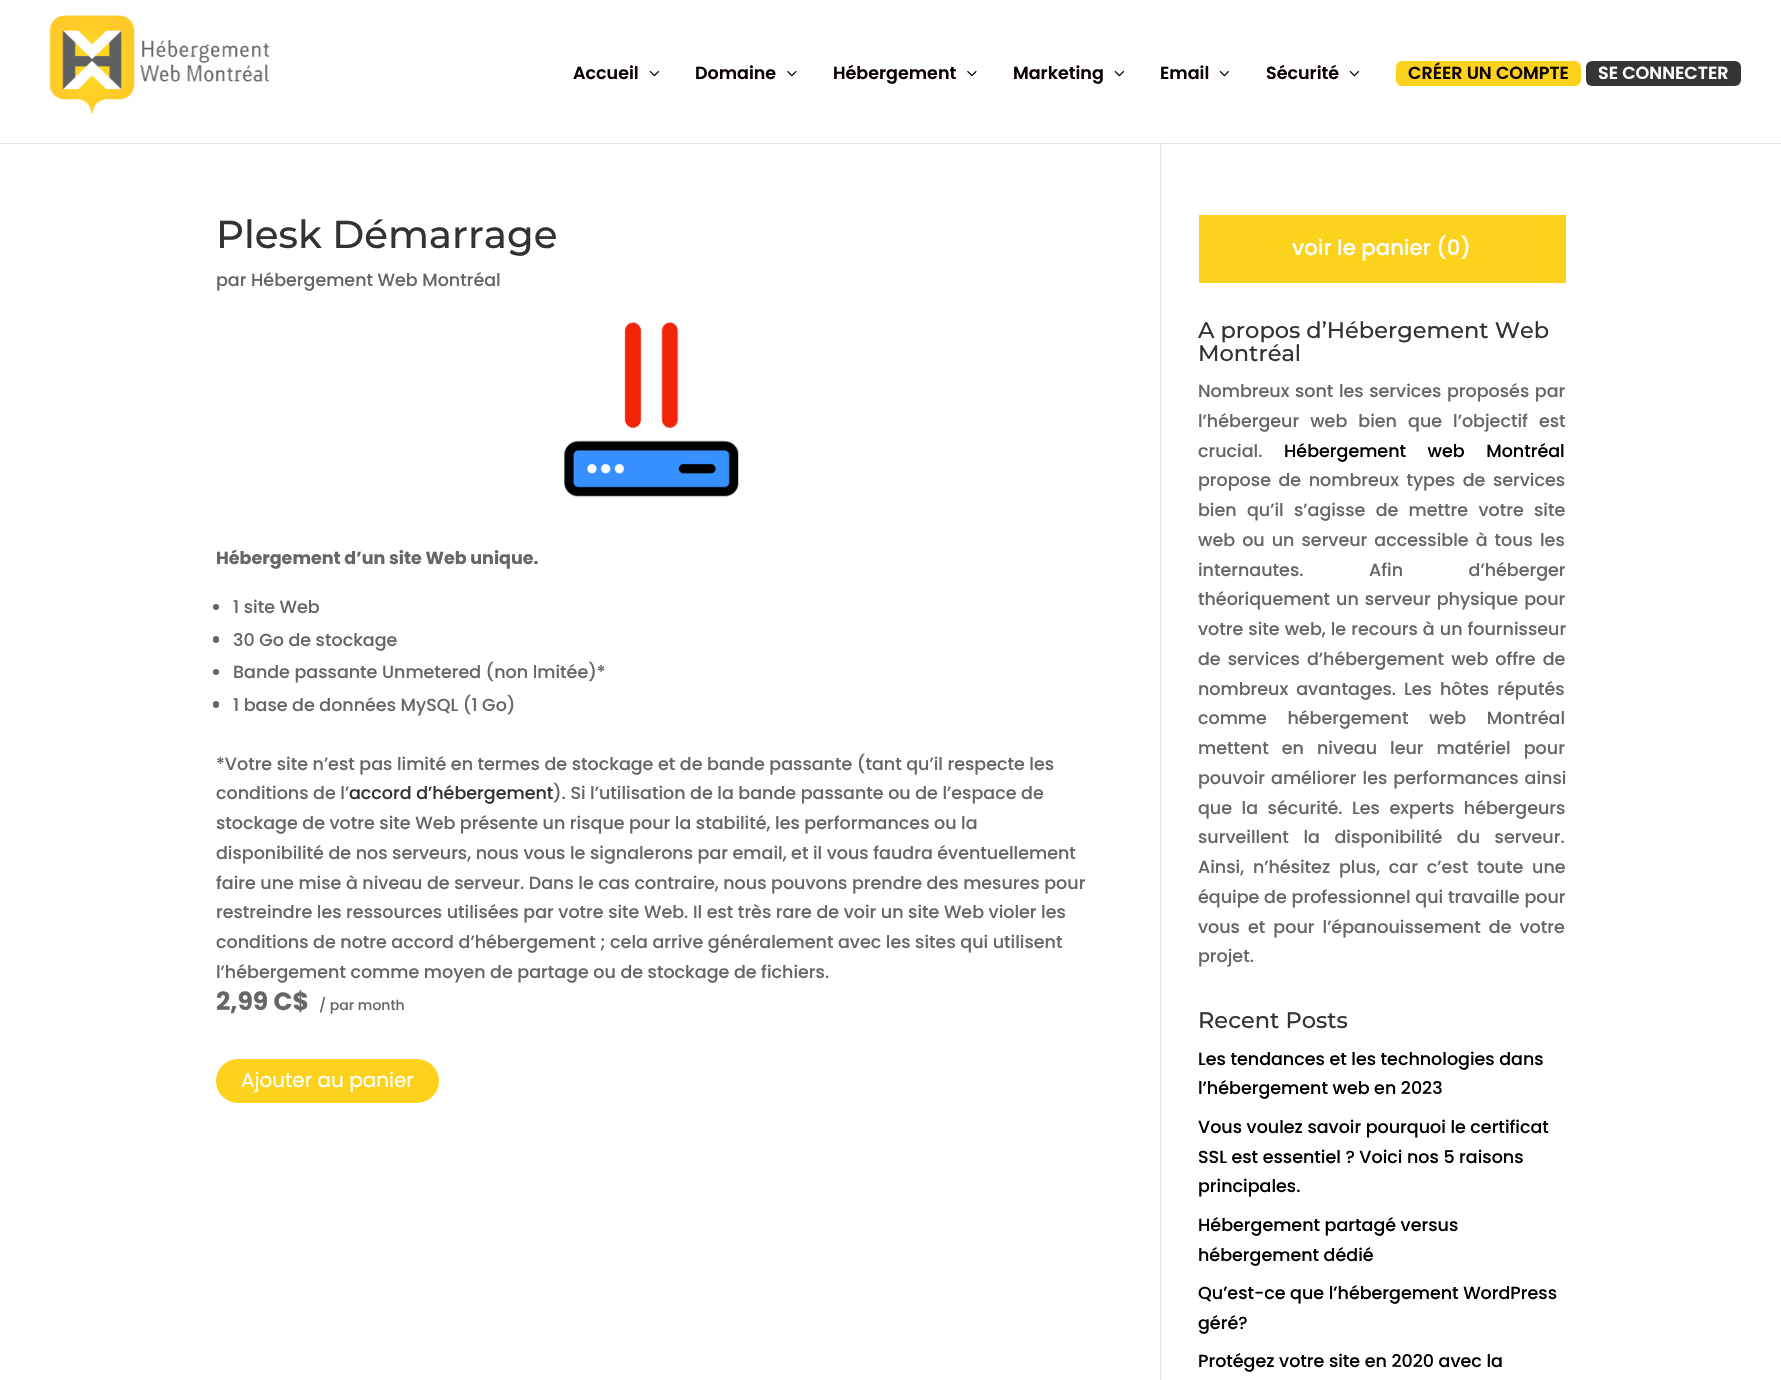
#include "include/core/SkBlurTypes.h"
#include "include/core/SkCanvas.h"
#include "include/core/SkData.h"
#include "include/core/SkFont.h"
#include "include/core/SkFontMgr.h"
#include "include/core/SkImage.h"
#include "include/core/SkMaskFilter.h"
#include "include/core/SkPaint.h"
#include "include/core/SkPathBuilder.h"
#include "include/core/SkTextBlob.h"
#include "include/effects/SkDashPathEffect.h"
#include "include/effects/SkGradientShader.h"
#include "include/utils/SkParsePath.h"

extern sk_sp<SkFontMgr> fontMgr;

static SkFont font(const char* family, int weight, float size, bool italic = false) {
    SkFontStyle style(weight, SkFontStyle::kNormal_Width,
        italic ? SkFontStyle::kItalic_Slant : SkFontStyle::kUpright_Slant);
    SkFont result(fontMgr->matchFamilyStyle(family, style), size);
    result.setSubpixel(true);
    return result;
}

static void drawLabel(SkCanvas* canvas, const char* s, float x, float y, const SkFont& font, SkColor color) {
    SkPaint ink(SkColor4f::FromColor(color));
    ink.setAntiAlias(true);
    canvas->drawString(s, x, y, font, ink);
}

static void drawTracked(SkCanvas* canvas, const char* s, float x, float y, const SkFont& font, const SkPaint& ink, float letter, float word) {
    std::vector<SkGlyphID> glyphs(font.countText(s, strlen(s), SkTextEncoding::kUTF8));
    std::vector<float> xs(glyphs.size());
    font.textToGlyphs(s, strlen(s), SkTextEncoding::kUTF8, glyphs);
    font.getXPos(glyphs, xs, x);
    float extra = 0;
    for (size_t i = 0; i < glyphs.size(); i++) {
        xs[i] += extra;
        extra += letter + word * (glyphs[i] == font.unicharToGlyph(' '));
    }
    canvas->drawTextBlob(SkTextBlob::MakeFromPosHGlyphs(glyphs, xs, y, font), 0, 0, ink);
}

static void fillRect(SkCanvas* canvas, float x, float y, float w, float h, SkColor color) {
    SkPaint ink(SkColor4f::FromColor(color));
    ink.setAntiAlias(true);
    canvas->drawRect(SkRect::MakeXYWH(x, y, w, h), ink);
}

static void fillRRect(SkCanvas* canvas, float x, float y, float w, float h, float radius, SkColor color) {
    SkPaint ink(SkColor4f::FromColor(color));
    ink.setAntiAlias(true);
    canvas->drawRoundRect(SkRect::MakeXYWH(x, y, w, h), radius, radius, ink);
}

static void drawPhoto(SkCanvas* canvas, const char* path, float x, float y, float w, float h) {
    auto image = SkImages::DeferredFromEncodedData(SkData::MakeFromFileName(path));
    canvas->drawImageRect(image, SkRect::MakeXYWH(x, y, w, h), SkSamplingOptions());
}

void draw(SkCanvas* canvas) {
    SkPaint paint;
    paint.setAntiAlias(true);
    canvas->clear(0xFFFFFFFF);
    drawPhoto(canvas, "assets/img1.png", 49, 15, 221, 99);
    SkFont font1 = font("Poppins", 600, 17.5f);
    drawLabel(canvas, "Accueil", 573, 79, font1, 0xFF0A0000);
    drawPhoto(canvas, "assets/img2.png", 649, 71, 10, 6);
    drawLabel(canvas, "Domaine", 695, 79, font1, 0xFF0A0000);
    drawPhoto(canvas, "assets/img3.png", 787, 71, 10, 6);
    drawLabel(canvas, "Hébergement", 833, 79, font1, 0xFF0A0000);
    drawPhoto(canvas, "assets/img3.png", 967, 71, 10, 6);
    drawLabel(canvas, "Marketing", 1013, 79, font1, 0xFF0A0000);
    drawPhoto(canvas, "assets/img2.png", 1114, 71, 10, 6);
    drawLabel(canvas, "Email", 1160, 79, font1, 0xFF0A0000);
    drawPhoto(canvas, "assets/img2.png", 1219, 71, 10, 6);
    drawLabel(canvas, "Sécurité", 1266, 79, font1, 0xFF0A0000);
    drawPhoto(canvas, "assets/img2.png", 1349, 71, 10, 6);
    fillRRect(canvas, 1396, 61, 185, 25, 6, 0xFFFCD21D);
    drawLabel(canvas, "CRÉER UN COMPTE", 1408, 79, font1, 0xFF0A0000);
    fillRRect(canvas, 1586, 61, 155, 25, 6, 0xFF353535);
    drawLabel(canvas, "SE CONNECTER", 1598, 79, font1, 0xFFFFFFFF);
    fillRect(canvas, 0, 143, 1781, 1, 0xFFE6E6E6);
    fillRect(canvas, 1160, 143, 1, 1237, 0xFFE2E2E2);
    fillRect(canvas, 1160, 143, 1, 1, 0xFFCBCBCB);
    SkFont font2 = font("Montserrat", 500, 38.75f);
    drawLabel(canvas, "Plesk Démarrage", 216, 248, font2, 0xFF333333);
    SkFont font3 = font("Poppins", 500, 17.5f);
    drawLabel(canvas, "par Hébergement Web Montréal", 216, 286, font3, 0xFF666666);
    drawPhoto(canvas, "assets/img4.png", 564, 322, 175, 175);
    SkFont font4 = font("Poppins", 700, 17.5f);
    drawLabel(canvas, "Hébergement d’un site Web unique.", 216, 564, font4, 0xFF666666);
    paint.setColor(0xFF666666);
    canvas->drawCircle(216, 607, 3, paint);
    drawLabel(canvas, "1 site Web", 233, 613, font3, 0xFF666666);
    fillRRect(canvas, 213, 636, 6, 7, 3, 0xFF666666);
    drawLabel(canvas, "30 Go de stockage", 233, 646, font3, 0xFF666666);
    canvas->drawCircle(216, 672, 3, paint);
    drawLabel(canvas, "Bande passante Unmetered (non lmitée)*", 233, 678, font3, 0xFF666666);
    fillRRect(canvas, 213, 701, 6, 7, 3, 0xFF666666);
    drawLabel(canvas, "1 base de données MySQL (1 Go)", 233, 711, font3, 0xFF666666);
    drawLabel(canvas, "*Votre site n’est pas limité en termes de stockage et de bande passante (tant qu’il respecte les", 216, 770, font3, 0xFF666666);
    drawLabel(canvas, "conditions de l’", 216, 799, font3, 0xFF666666);
    drawLabel(canvas, "accord d’hébergement", 349, 799, font3, 0xFF333333);
    drawLabel(canvas, "). Si l’utilisation de la bande passante ou de l’espace de", 553, 799, font3, 0xFF666666);
    drawLabel(canvas, "stockage de votre site Web présente un risque pour la stabilité, les performances ou la", 216, 829, font3, 0xFF666666);
    drawLabel(canvas, "disponibilité de nos serveurs, nous vous le signalerons par email, et il vous faudra éventuellement", 216, 859, font3, 0xFF666666);
    drawLabel(canvas, "faire une mise à niveau de serveur. Dans le cas contraire, nous pouvons prendre des mesures pour", 216, 889, font3, 0xFF666666);
    drawLabel(canvas, "restreindre les ressources utilisées par votre site Web. Il est très rare de voir un site Web violer les", 216, 918, font3, 0xFF666666);
    drawLabel(canvas, "conditions de notre accord d’hébergement ; cela arrive généralement avec les sites qui utilisent", 216, 948, font3, 0xFF666666);
    drawLabel(canvas, "l’hébergement comme moyen de partage ou de stockage de fichiers.", 216, 978, font3, 0xFF666666);
    SkFont font5 = font("Poppins", 700, 25);
    drawLabel(canvas, "2,99 C$", 216, 1010, font5, 0xFF666666);
    SkFont font6 = font("Poppins", 500, 14);
    drawLabel(canvas, "/ par month", 319, 1010, font6, 0xFF666666);
    fillRRect(canvas, 216, 1059, 223, 44, 22, 0xFFFCD21D);
    SkFont font7 = font("Poppins", 400, 20);
    drawLabel(canvas, "Ajouter au panier", 241, 1087, font7, 0xFFFFFFFF);
    fillRect(canvas, 1199, 215, 367, 68, 0xFFFCD21D);
    SkFont font8 = font("Poppins", 500, 21.25f);
    drawLabel(canvas, "voir le panier (0)", 1292, 255, font8, 0xFFFFFFFF);
    SkFont font9 = font("Montserrat", 500, 22.5f);
    drawLabel(canvas, "A propos d’Hébergement Web", 1198, 338, font9, 0xFF333333);
    drawLabel(canvas, "Montréal", 1198, 361, font9, 0xFF333333);
    drawTracked(canvas, "Nombreux sont les services proposés par", 1198, 397, font3, paint, 0, 1);
    drawTracked(canvas, "l’hébergeur web bien que l’objectif est", 1198, 427, font3, paint, 0, 6.5f);
    drawLabel(canvas, "crucial.", 1198, 457, font3, 0xFF666666);
    paint.setColor(0xFF000000);
    drawTracked(canvas, "Hébergement web Montréal", 1284, 457, font3, paint, 0, 17);
    paint.setColor(0xFF666666);
    drawTracked(canvas, "propose de nombreux types de services", 1198, 486, font3, paint, 0, 3);
    drawTracked(canvas, "bien qu’il s’agisse de mettre votre site", 1198, 516, font3, paint, 0, 5.75f);
    drawTracked(canvas, "web ou un serveur accessible à tous les", 1198, 546, font3, paint, 0, 2.5f);
    drawTracked(canvas, "internautes. Afin d’héberger", 1198, 576, font3, paint, 0, 61);
    drawTracked(canvas, "théoriquement un serveur physique pour", 1198, 605, font3, paint, 0, 1.5f);
    drawTracked(canvas, "votre site web, le recours à un fournisseur", 1198, 635, font3, paint, 0, 0.5f);
    drawTracked(canvas, "de services d’hébergement web offre de", 1198, 665, font3, paint, 0, 2.5f);
    drawTracked(canvas, "nombreux avantages. Les hôtes réputés", 1198, 695, font3, paint, 0, 3.5f);
    drawTracked(canvas, "comme hébergement web Montréal", 1198, 724, font3, paint, 0, 16);
    drawTracked(canvas, "mettent en niveau leur matériel pour", 1198, 754, font3, paint, 0, 8.5f);
    drawTracked(canvas, "pouvoir améliorer les performances ainsi", 1198, 784, font3, paint, 0, 1.5f);
    drawTracked(canvas, "que la sécurité. Les experts hébergeurs", 1198, 814, font3, paint, 0, 5);
    drawTracked(canvas, "surveillent la disponibilité du serveur.", 1198, 843, font3, paint, 0, 10);
    drawTracked(canvas, "Ainsi, n’hésitez plus, car c’est toute une", 1198, 873, font3, paint, 0, 4.25f);
    drawTracked(canvas, "équipe de professionnel qui travaille pour", 1198, 903, font3, paint, 0, 0.25f);
    drawTracked(canvas, "vous et pour l’épanouissement de votre", 1198, 933, font3, paint, 0, 3.5f);
    drawLabel(canvas, "projet.", 1198, 962, font3, 0xFF666666);
    drawLabel(canvas, "Recent Posts", 1198, 1028, font9, 0xFF333333);
    drawLabel(canvas, "Les tendances et les technologies dans", 1198, 1065, font3, 0xFF000000);
    drawLabel(canvas, "l’hébergement web en 2023", 1198, 1094, font3, 0xFF000000);
    drawLabel(canvas, "Vous voulez savoir pourquoi le certificat", 1198, 1133, font3, 0xFF000000);
    drawLabel(canvas, "SSL est essentiel ? Voici nos 5 raisons", 1198, 1163, font3, 0xFF000000);
    drawLabel(canvas, "principales.", 1198, 1192, font3, 0xFF000000);
    drawLabel(canvas, "Hébergement partagé versus", 1198, 1231, font3, 0xFF000000);
    drawLabel(canvas, "hébergement dédié", 1198, 1261, font3, 0xFF000000);
    drawLabel(canvas, "Qu’est-ce que l’hébergement WordPress", 1198, 1299, font3, 0xFF000000);
    drawLabel(canvas, "géré?", 1198, 1329, font3, 0xFF000000);
    drawLabel(canvas, "Protégez votre site en 2020 avec la", 1198, 1367, font3, 0xFF000000);
}
